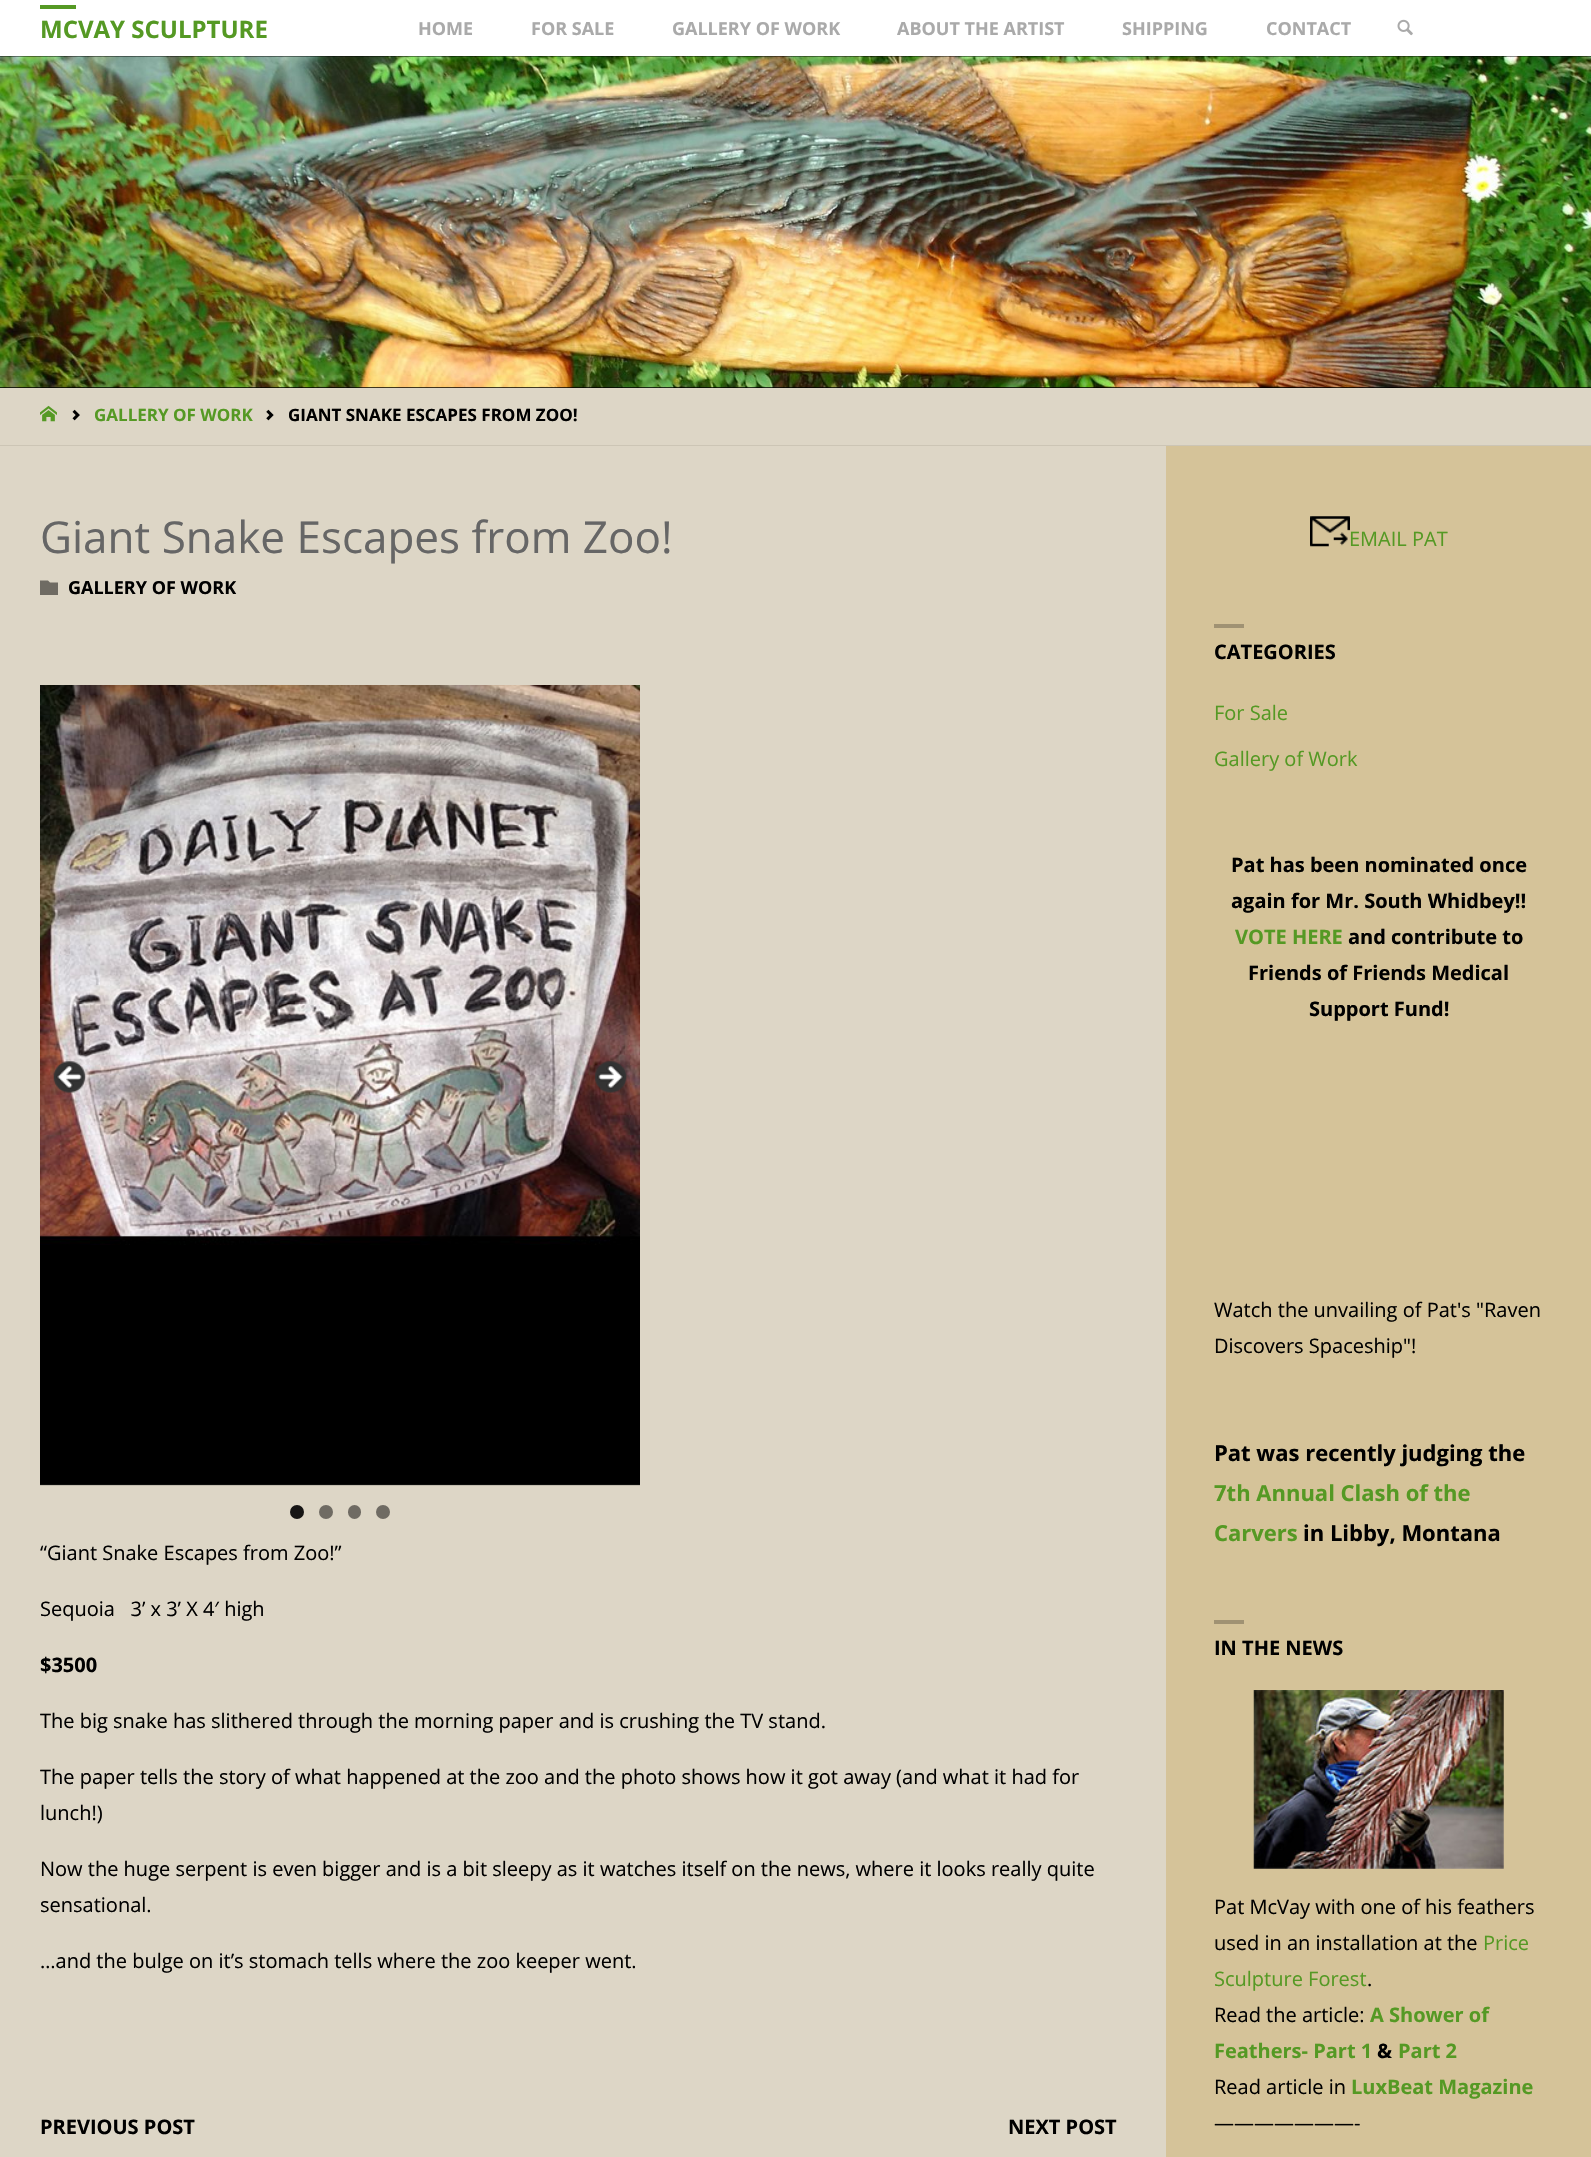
#include "include/core/SkBlurTypes.h"
#include "include/core/SkCanvas.h"
#include "include/core/SkData.h"
#include "include/core/SkFont.h"
#include "include/core/SkFontMgr.h"
#include "include/core/SkImage.h"
#include "include/core/SkMaskFilter.h"
#include "include/core/SkPaint.h"
#include "include/core/SkPathBuilder.h"
#include "include/core/SkTextBlob.h"
#include "include/effects/SkDashPathEffect.h"
#include "include/effects/SkGradientShader.h"
#include "include/utils/SkParsePath.h"

extern sk_sp<SkFontMgr> fontMgr;

static SkFont font(const char* family, int weight, float size, bool italic = false) {
    SkFontStyle style(weight, SkFontStyle::kNormal_Width,
        italic ? SkFontStyle::kItalic_Slant : SkFontStyle::kUpright_Slant);
    SkFont result(fontMgr->matchFamilyStyle(family, style), size);
    result.setSubpixel(true);
    return result;
}

static void drawLabel(SkCanvas* canvas, const char* s, float x, float y, const SkFont& font, SkColor color) {
    SkPaint ink(SkColor4f::FromColor(color));
    ink.setAntiAlias(true);
    canvas->drawString(s, x, y, font, ink);
}

static void fillRect(SkCanvas* canvas, float x, float y, float w, float h, SkColor color) {
    SkPaint ink(SkColor4f::FromColor(color));
    ink.setAntiAlias(true);
    canvas->drawRect(SkRect::MakeXYWH(x, y, w, h), ink);
}

static void fillRRect(SkCanvas* canvas, float x, float y, float w, float h, float radius, SkColor color) {
    SkPaint ink(SkColor4f::FromColor(color));
    ink.setAntiAlias(true);
    canvas->drawRoundRect(SkRect::MakeXYWH(x, y, w, h), radius, radius, ink);
}

static void drawPhoto(SkCanvas* canvas, const char* path, float x, float y, float w, float h) {
    auto image = SkImages::DeferredFromEncodedData(SkData::MakeFromFileName(path));
    canvas->drawImageRect(image, SkRect::MakeXYWH(x, y, w, h), SkSamplingOptions());
}

static SkPath parsePath(const char* data, bool evenOdd = false) {
    SkPath result = *SkParsePath::FromSVGString(data);
    if (evenOdd) result.setFillType(SkPathFillType::kEvenOdd);
    return result;
}

void draw(SkCanvas* canvas) {
    SkPaint paint;
    paint.setAntiAlias(true);
    canvas->clear(0xFF000000);
    fillRect(canvas, 0, 0, 1591, 56, 0xFFFFFFFF);
    fillRect(canvas, 40, 5, 36, 4, 0xFF559924);
    SkFont font1 = font("Open Sans", 700, 24);
    drawLabel(canvas, "MCVAY SCULPTURE", 40, 38, font1, 0xFF559924);
    SkFont font2 = font("Open Sans", 700, 18);
    drawLabel(canvas, "HOME", 418, 35, font2, 0xFFAAAAAA);
    drawLabel(canvas, "FOR SALE", 531, 35, font2, 0xFFAAAAAA);
    drawLabel(canvas, "GALLERY OF WORK", 672, 35, font2, 0xFFAAAAAA);
    drawLabel(canvas, "ABOUT THE ARTIST", 897, 35, font2, 0xFFAAAAAA);
    drawLabel(canvas, "SHIPPING", 1122, 35, font2, 0xFFAAAAAA);
    drawLabel(canvas, "CONTACT", 1266, 35, font2, 0xFFAAAAAA);
    drawPhoto(canvas, "assets/img1.png", 1397, 19, 16, 17);
    drawPhoto(canvas, "assets/img2.png", 0, 56, 1591, 332);
    fillRect(canvas, 0, 388, 1591, 57, 0xFFDDD6C6);
    fillRect(canvas, 0, 445, 1591, 1, 0xFFCCC5B5);
    drawPhoto(canvas, "assets/img3.png", 40, 405, 17, 17);
    drawPhoto(canvas, "assets/img4.png", 72, 409, 8, 12);
    SkFont font3 = font("Open Sans", 700, 17);
    drawLabel(canvas, "GALLERY OF WORK", 94, 421, font3, 0xFF559924);
    drawPhoto(canvas, "assets/img5.png", 266, 409, 8, 12);
    drawLabel(canvas, "GIANT SNAKE ESCAPES FROM ZOO!", 288, 421, font3, 0xFF000000);
    fillRect(canvas, 0, 446, 1166, 1711, 0xFFDDD6C6);
    SkFont font4 = font("Open Sans", 400, 44);
    drawLabel(canvas, "Giant Snake Escapes from Zoo!", 40, 553, font4, 0xFF666666);
    paint.setColor(0xFF6F6B63);
    canvas->drawPath(parsePath("M48 580.5L50 582.5H58V595H40V580.5Z"), paint);
    drawLabel(canvas, "GALLERY OF WORK", 68, 594, font2, 0xFF000000);
    drawPhoto(canvas, "assets/img6.png", 40, 685, 600, 801);
    drawPhoto(canvas, "assets/img7.png", 53, 1061, 33, 32);
    drawPhoto(canvas, "assets/img8.png", 595, 1061, 32, 32);
    paint.setColor(0xFF161514);
    canvas->drawCircle(297, 1512, 7, paint);
    paint.setColor(0xFF6F6B63);
    canvas->drawCircle(326, 1512, 7, paint);
    fillRRect(canvas, 348, 1505, 13, 14, 6.5f, 0xFF6F6B63);
    canvas->drawCircle(383, 1512, 7, paint);
    SkFont font5 = font("Open Sans", 400, 20);
    drawLabel(canvas, "“Giant Snake Escapes from Zoo!”", 40, 1560, font5, 0xFF000000);
    drawLabel(canvas, "Sequoia   3’ x 3’ X 4′ high", 40, 1616, font5, 0xFF000000);
    SkFont font6 = font("Open Sans", 700, 20);
    drawLabel(canvas, "$3500", 40, 1672, font6, 0xFF000000);
    drawLabel(canvas, "The big snake has slithered through the morning paper and is crushing the TV stand.", 40, 1728, font5, 0xFF000000);
    drawLabel(canvas, "The paper tells the story of what happened at the zoo and the photo shows how it got away (and what it had for", 40, 1784, font5, 0xFF000000);
    drawLabel(canvas, "lunch!)", 40, 1820, font5, 0xFF000000);
    drawLabel(canvas, "Now the huge serpent is even bigger and is a bit sleepy as it watches itself on the news, where it looks really quite", 40, 1876, font5, 0xFF000000);
    drawLabel(canvas, "sensational.", 40, 1912, font5, 0xFF000000);
    drawLabel(canvas, "…and the bulge on it’s stomach tells where the zoo keeper went.", 40, 1968, font5, 0xFF000000);
    drawLabel(canvas, "PREVIOUS POST", 40, 2134, font6, 0xFF000000);
    drawLabel(canvas, "NEXT POST", 1008, 2134, font6, 0xFF000000);
    fillRect(canvas, 1166, 446, 425, 1711, 0xFFD5C399);
    drawPhoto(canvas, "assets/img9.png", 1310, 516, 40, 31);
    drawLabel(canvas, "EMAIL PAT", 1349, 546, font5, 0xFF559924);
    fillRect(canvas, 1214, 624, 30, 4, 0xFFA09273);
    drawLabel(canvas, "CATEGORIES", 1214, 659, font6, 0xFF000000);
    drawLabel(canvas, "For Sale", 1214, 720, font5, 0xFF559924);
    drawLabel(canvas, "Gallery of Work", 1214, 766, font5, 0xFF559924);
    drawLabel(canvas, "Pat has been nominated once", 1231, 872, font6, 0xFF000000);
    drawLabel(canvas, "again for Mr. South Whidbey!!", 1231, 908, font6, 0xFF000000);
    drawLabel(canvas, "VOTE HERE", 1235, 944, font6, 0xFF559924);
    drawLabel(canvas, "and contribute to", 1348, 944, font6, 0xFF000000);
    drawLabel(canvas, "Friends of Friends Medical", 1248, 980, font6, 0xFF000000);
    drawLabel(canvas, "Support Fund!", 1309, 1016, font6, 0xFF000000);
    drawLabel(canvas, "Watch the unvailing of Pat's \"Raven", 1214, 1317, font5, 0xFF000000);
    drawLabel(canvas, "Discovers Spaceship\"!", 1214, 1353, font5, 0xFF000000);
    SkFont font7 = font("Open Sans", 700, 22);
    drawLabel(canvas, "Pat was recently judging the", 1214, 1461, font7, 0xFF000000);
    drawLabel(canvas, "7th Annual Clash of the", 1214, 1501, font7, 0xFF559924);
    drawLabel(canvas, "Carvers", 1214, 1541, font7, 0xFF559924);
    drawLabel(canvas, "in Libby, Montana", 1303, 1541, font7, 0xFF000000);
    fillRect(canvas, 1214, 1620, 30, 4, 0xFFA09273);
    drawLabel(canvas, "IN THE NEWS", 1214, 1655, font6, 0xFF000000);
    drawPhoto(canvas, "assets/img10.png", 1253, 1690, 251, 179);
    drawLabel(canvas, "Pat McVay with one of his feathers", 1214, 1914, font5, 0xFF000000);
    drawLabel(canvas, "used in an installation at the", 1214, 1950, font5, 0xFF000000);
    drawLabel(canvas, "Price", 1483, 1950, font5, 0xFF559924);
    drawLabel(canvas, "Sculpture Forest", 1214, 1986, font5, 0xFF559924);
    drawLabel(canvas, ".", 1367, 1986, font5, 0xFF000000);
    drawLabel(canvas, "Read the article:", 1214, 2022, font5, 0xFF000000);
    drawLabel(canvas, "A Shower of", 1370, 2022, font6, 0xFF559924);
    drawLabel(canvas, "Feathers- Part 1", 1214, 2058, font6, 0xFF559924);
    drawLabel(canvas, "&", 1377, 2058, font6, 0xFF000000);
    drawLabel(canvas, "Part 2", 1398, 2058, font6, 0xFF559924);
    drawLabel(canvas, "Read article in", 1214, 2094, font5, 0xFF000000);
    drawLabel(canvas, "LuxBeat Magazine", 1351, 2094, font6, 0xFF559924);
    drawLabel(canvas, "———————-", 1214, 2130, font5, 0xFF000000);
}
